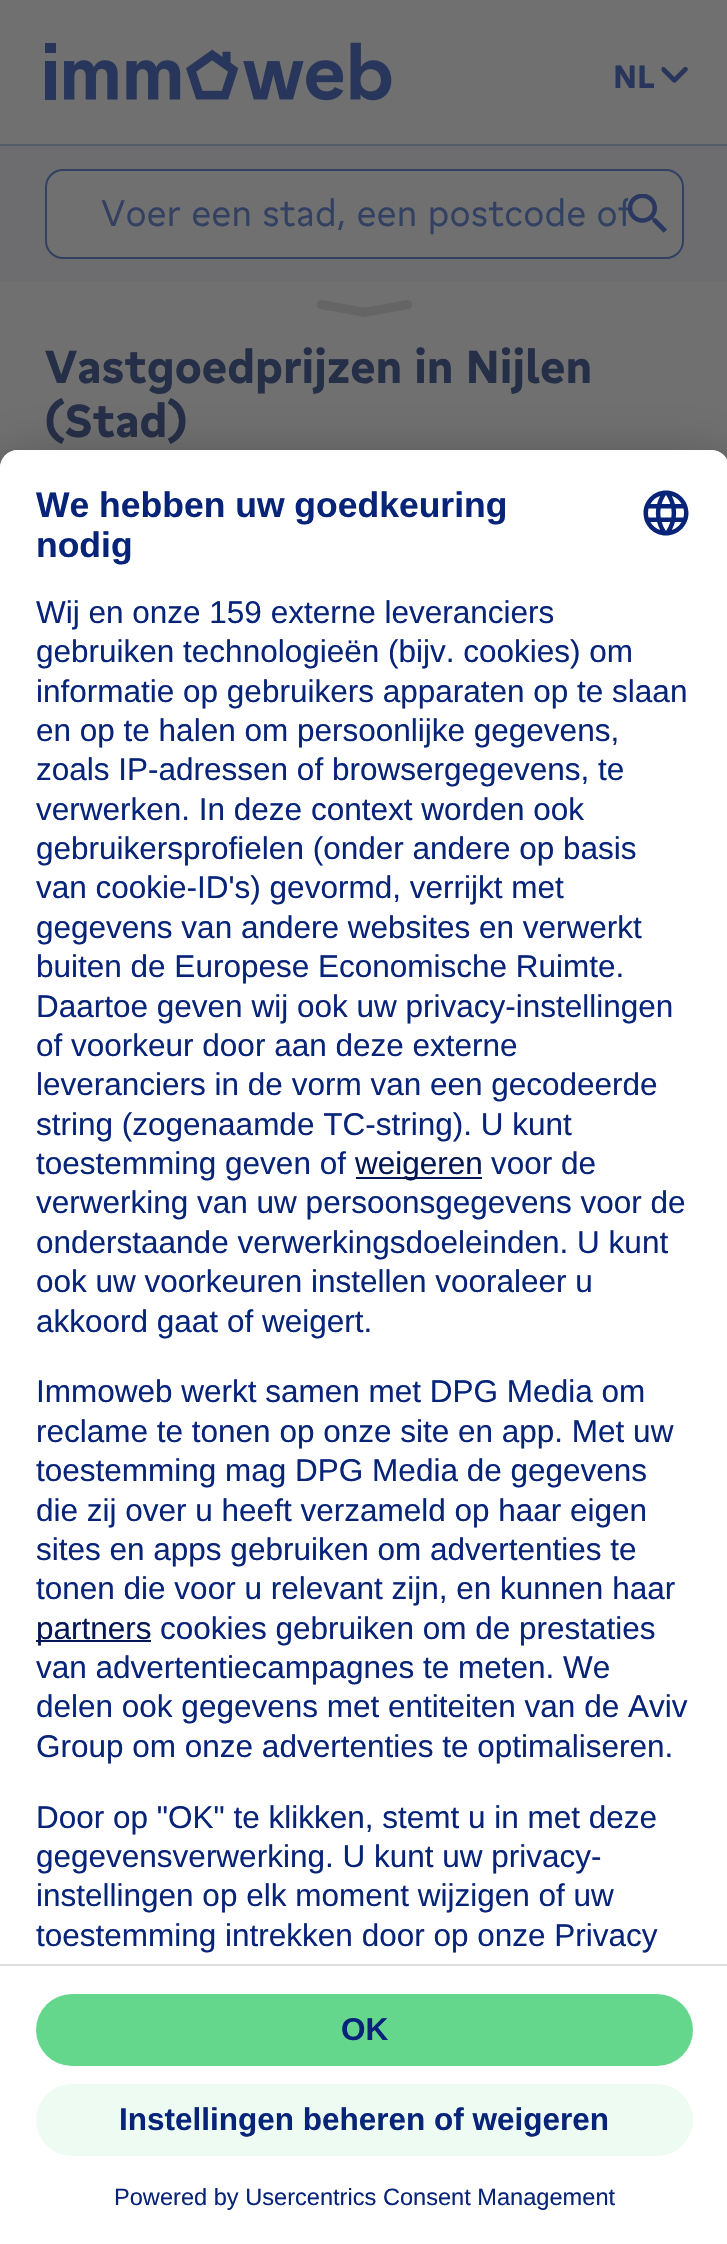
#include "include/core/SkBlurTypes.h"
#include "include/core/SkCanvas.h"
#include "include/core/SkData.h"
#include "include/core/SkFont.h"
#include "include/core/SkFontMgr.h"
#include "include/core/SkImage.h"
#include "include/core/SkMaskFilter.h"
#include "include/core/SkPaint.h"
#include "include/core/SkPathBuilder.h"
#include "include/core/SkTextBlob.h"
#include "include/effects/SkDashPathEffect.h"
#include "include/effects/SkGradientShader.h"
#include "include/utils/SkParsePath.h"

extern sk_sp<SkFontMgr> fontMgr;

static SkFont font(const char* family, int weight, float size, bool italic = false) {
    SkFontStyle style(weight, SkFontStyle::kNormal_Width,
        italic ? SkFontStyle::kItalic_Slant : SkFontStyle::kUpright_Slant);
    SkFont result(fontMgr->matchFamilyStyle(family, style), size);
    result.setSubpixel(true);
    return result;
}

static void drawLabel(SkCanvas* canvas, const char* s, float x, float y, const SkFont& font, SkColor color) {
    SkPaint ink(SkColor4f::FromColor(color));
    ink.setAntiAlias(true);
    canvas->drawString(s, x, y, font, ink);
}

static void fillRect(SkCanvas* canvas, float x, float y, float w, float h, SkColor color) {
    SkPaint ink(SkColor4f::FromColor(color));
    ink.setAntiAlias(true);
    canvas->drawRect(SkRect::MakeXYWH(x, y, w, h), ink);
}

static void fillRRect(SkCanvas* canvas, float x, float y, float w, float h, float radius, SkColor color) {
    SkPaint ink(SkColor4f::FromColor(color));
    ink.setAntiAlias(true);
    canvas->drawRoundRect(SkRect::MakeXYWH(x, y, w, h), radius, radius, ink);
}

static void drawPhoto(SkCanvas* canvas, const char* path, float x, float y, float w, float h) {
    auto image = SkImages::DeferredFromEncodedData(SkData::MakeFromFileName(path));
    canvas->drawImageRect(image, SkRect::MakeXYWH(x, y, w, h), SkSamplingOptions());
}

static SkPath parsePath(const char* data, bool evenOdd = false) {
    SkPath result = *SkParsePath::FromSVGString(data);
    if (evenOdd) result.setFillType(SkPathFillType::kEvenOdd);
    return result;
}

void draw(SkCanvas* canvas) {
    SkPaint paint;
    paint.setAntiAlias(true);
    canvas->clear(0xFF707070);
    fillRect(canvas, 0, 144, 727, 2, 0xFF565D6A);
    drawPhoto(canvas, "assets/img1.png", 45, 42, 347, 59);
    SkFont font1 = font("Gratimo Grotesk", 700, 31.5f);
    drawLabel(canvas, "NL", 613, 88, font1, 0xFF29365C);
    drawPhoto(canvas, "assets/img2.png", 661, 67, 27, 16);
    fillRect(canvas, 0, 146, 727, 135, 0xFF6D6D6F);
    paint.setColor(0xFF707070);
    canvas->drawRoundRect(SkRect::MakeXYWH(46, 170, 637, 88), 17, 17, paint);
    paint.setStroke(true);
    paint.setStrokeWidth(2);
    paint.setColor(0xFF324062);
    canvas->drawRoundRect(SkRect::MakeXYWH(46, 170, 637, 88), 17, 17, paint);
    canvas->save();
    canvas->clipRect(SkRect::MakeXYWH(101, 189, 527, 50));
    SkFont font2 = font("Gratimo Grotesk", 400, 36);
    drawLabel(canvas, "Voer een stad, een postcode of", 101, 226, font2, 0xFF324062);
    canvas->restore();
    drawPhoto(canvas, "assets/img3.png", 628, 194, 39, 39);
    paint.setStroke(false);
    paint.setColor(0xFF656565);
    canvas->drawPath(parsePath("M363 308L407 300C410 300 412 301 412 304C413 306 411 309 409 309L364 317C362 317 360 316 359 313C359 311 360 308 363 308Z"), paint);
    canvas->drawPath(parsePath("M322 300L366 308C369 308 370 311 370 313C369 316 367 317 365 317L320 309C318 309 316 306 317 304C317 301 319 300 322 300Z"), paint);
    SkFont font3 = font("Gratimo Grotesk", 700, 45);
    drawLabel(canvas, "Vastgoedprijzen in Nijlen", 45, 383, font3, 0xFF262F48);
    drawLabel(canvas, "(Stad)", 45, 437, font3, 0xFF262F48);
    paint.setColor(0x4D000000);
    paint.setMaskFilter(SkMaskFilter::MakeBlur(kNormal_SkBlurStyle, 31.5f));
    canvas->drawRoundRect(SkRect::MakeXYWH(0, 495, 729, 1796), 18, 18, paint);
    paint.setMaskFilter(nullptr);
    paint.setColor(0x38000000);
    paint.setMaskFilter(SkMaskFilter::MakeBlur(kNormal_SkBlurStyle, 29));
    canvas->drawRoundRect(SkRect::MakeXYWH(0, 461, 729, 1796), 18, 18, paint);
    paint.setMaskFilter(nullptr);
    paint.setColor(0xFFFFFFFF);
    canvas->drawPath(parsePath("M18 450H711C721 450 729 458 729 468V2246H0V468C0 458 8 450 18 450Z"), paint);
    canvas->drawPath(parsePath("M18 450H711C721 450 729 458 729 468V1964H0V468C0 458 8 450 18 450Z"), paint);
    SkFont font4 = font("Liberation Sans", 700, 35.5f);
    drawLabel(canvas, "We hebben uw goedkeuring", 36, 517, font4, 0xFF082479);
    drawLabel(canvas, "nodig", 36, 557, font4, 0xFF082479);
    drawPhoto(canvas, "assets/img4.png", 643, 490, 46, 46);
    SkFont font5 = font("Liberation Sans", 400, 31.5f);
    drawLabel(canvas, "Wij en onze 159 externe leveranciers", 36, 623, font5, 0xFF082479);
    drawLabel(canvas, "gebruiken technologieën (bijv. cookies) om", 36, 662, font5, 0xFF082479);
    drawLabel(canvas, "informatie op gebruikers apparaten op te slaan", 36, 702, font5, 0xFF082479);
    drawLabel(canvas, "en op te halen om persoonlijke gegevens,", 36, 741, font5, 0xFF082479);
    drawLabel(canvas, "zoals IP-adressen of browsergegevens, te", 36, 780, font5, 0xFF082479);
    drawLabel(canvas, "verwerken. In deze context worden ook", 36, 820, font5, 0xFF082479);
    drawLabel(canvas, "gebruikersprofielen (onder andere op basis", 36, 859, font5, 0xFF082479);
    drawLabel(canvas, "van cookie-ID's) gevormd, verrijkt met", 36, 898, font5, 0xFF082479);
    drawLabel(canvas, "gegevens van andere websites en verwerkt", 36, 938, font5, 0xFF082479);
    drawLabel(canvas, "buiten de Europese Economische Ruimte.", 36, 977, font5, 0xFF082479);
    drawLabel(canvas, "Daartoe geven wij ook uw privacy-instellingen", 36, 1017, font5, 0xFF082479);
    drawLabel(canvas, "of voorkeur door aan deze externe", 36, 1056, font5, 0xFF082479);
    drawLabel(canvas, "leveranciers in de vorm van een gecodeerde", 36, 1095, font5, 0xFF082479);
    drawLabel(canvas, "string (zogenaamde TC-string). U kunt", 36, 1135, font5, 0xFF082479);
    drawLabel(canvas, "toestemming geven of", 36, 1174, font5, 0xFF082479);
    fillRect(canvas, 356, 1177, 126, 2, 0xFF041654);
    drawLabel(canvas, "weigeren", 355, 1174, font5, 0xFF041654);
    drawLabel(canvas, "voor de", 491, 1174, font5, 0xFF082479);
    drawLabel(canvas, "verwerking van uw persoonsgegevens voor de", 36, 1213, font5, 0xFF082479);
    drawLabel(canvas, "onderstaande verwerkingsdoeleinden. U kunt", 36, 1253, font5, 0xFF082479);
    drawLabel(canvas, "ook uw voorkeuren instellen vooraleer u", 36, 1292, font5, 0xFF082479);
    drawLabel(canvas, "akkoord gaat of weigert.", 36, 1332, font5, 0xFF082479);
    drawLabel(canvas, "Immoweb werkt samen met DPG Media om", 36, 1402, font5, 0xFF082479);
    drawLabel(canvas, "reclame te tonen op onze site en app. Met uw", 36, 1442, font5, 0xFF082479);
    drawLabel(canvas, "toestemming mag DPG Media de gegevens", 36, 1481, font5, 0xFF082479);
    drawLabel(canvas, "die zij over u heeft verzameld op haar eigen", 36, 1521, font5, 0xFF082479);
    drawLabel(canvas, "sites en apps gebruiken om advertenties te", 36, 1560, font5, 0xFF082479);
    drawLabel(canvas, "tonen die voor u relevant zijn, en kunnen haar", 36, 1599, font5, 0xFF082479);
    fillRect(canvas, 36, 1640, 115, 2, 0xFF041654);
    drawLabel(canvas, "partners", 36, 1639, font5, 0xFF041654);
    drawLabel(canvas, "cookies gebruiken om de prestaties", 160, 1639, font5, 0xFF082479);
    drawLabel(canvas, "van advertentiecampagnes te meten. We", 36, 1678, font5, 0xFF082479);
    drawLabel(canvas, "delen ook gegevens met entiteiten van de Aviv", 36, 1717, font5, 0xFF082479);
    drawLabel(canvas, "Group om onze advertenties te optimaliseren.", 36, 1757, font5, 0xFF082479);
    drawLabel(canvas, "Door op \"OK\" te klikken, stemt u in met deze", 36, 1828, font5, 0xFF082479);
    drawLabel(canvas, "gegevensverwerking. U kunt uw privacy-", 36, 1867, font5, 0xFF082479);
    drawLabel(canvas, "instellingen op elk moment wijzigen of uw", 36, 1906, font5, 0xFF082479);
    drawLabel(canvas, "toestemming intrekken door op onze Privacy", 36, 1946, font5, 0xFF082479);
    fillRect(canvas, 0, 1964, 727, 2, 0xFFDDDDDD);
    fillRRect(canvas, 36, 1994, 657, 72, 36, 0xFF65D78D);
    SkFont font6 = font("Liberation Sans", 700, 31.5f);
    drawLabel(canvas, "OK", 341, 2040, font6, 0xFF082479);
    fillRRect(canvas, 36, 2084, 657, 72, 36, 0xFFEEFBF2);
    drawLabel(canvas, "Instellingen beheren of weigeren", 119, 2130, font6, 0xFF082479);
    SkFont font7 = font("Liberation Sans", 400, 23.6f);
    drawLabel(canvas, "Powered by Usercentrics Consent Management", 114, 2205, font7, 0xFF082479);
}
